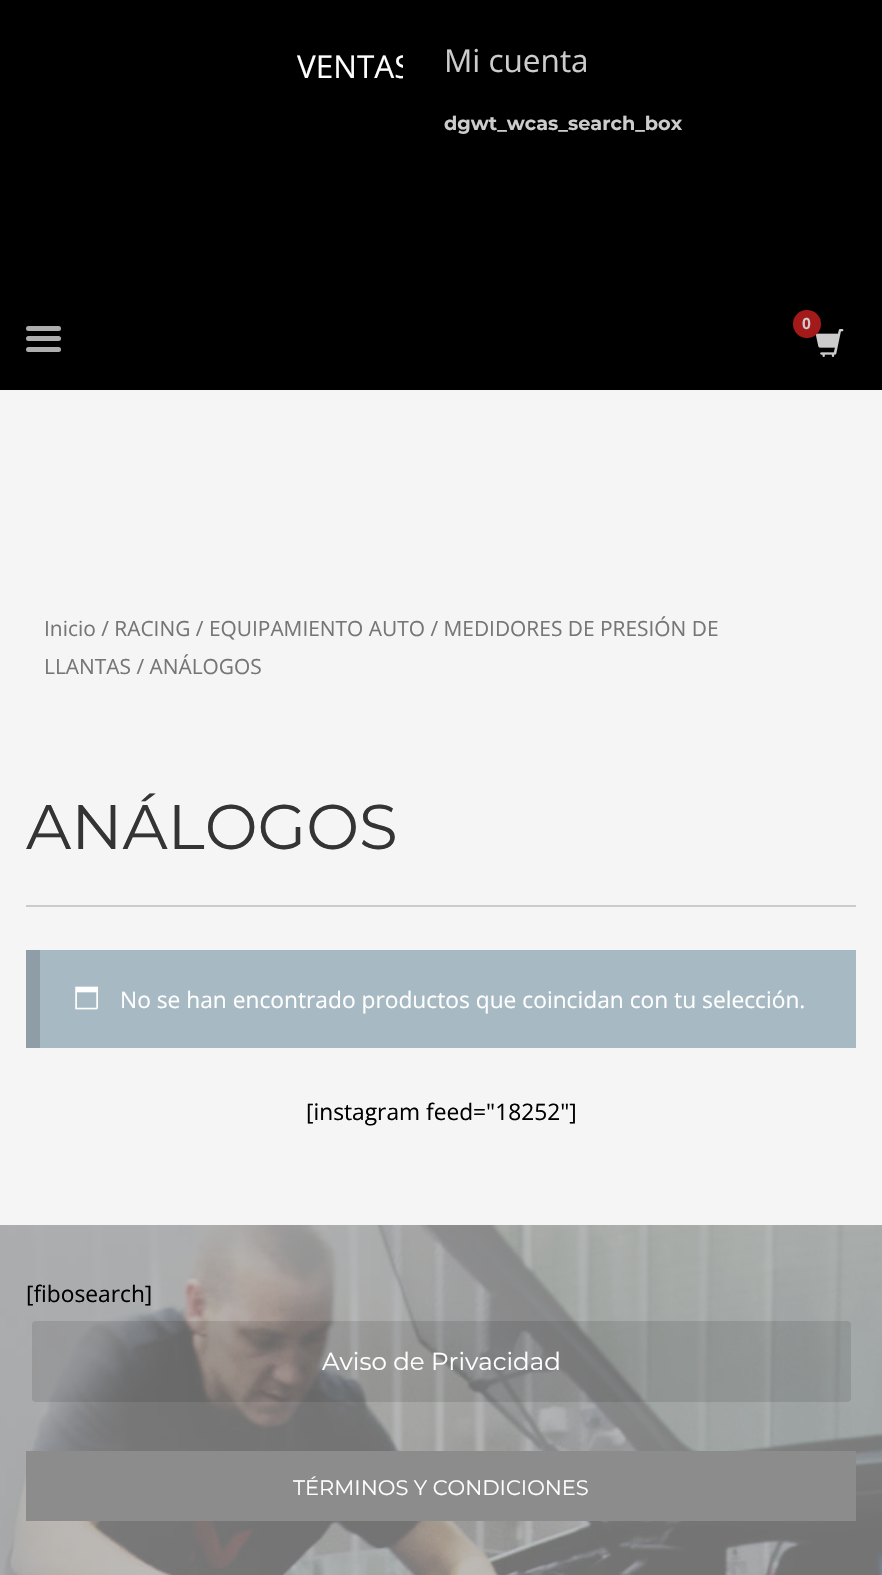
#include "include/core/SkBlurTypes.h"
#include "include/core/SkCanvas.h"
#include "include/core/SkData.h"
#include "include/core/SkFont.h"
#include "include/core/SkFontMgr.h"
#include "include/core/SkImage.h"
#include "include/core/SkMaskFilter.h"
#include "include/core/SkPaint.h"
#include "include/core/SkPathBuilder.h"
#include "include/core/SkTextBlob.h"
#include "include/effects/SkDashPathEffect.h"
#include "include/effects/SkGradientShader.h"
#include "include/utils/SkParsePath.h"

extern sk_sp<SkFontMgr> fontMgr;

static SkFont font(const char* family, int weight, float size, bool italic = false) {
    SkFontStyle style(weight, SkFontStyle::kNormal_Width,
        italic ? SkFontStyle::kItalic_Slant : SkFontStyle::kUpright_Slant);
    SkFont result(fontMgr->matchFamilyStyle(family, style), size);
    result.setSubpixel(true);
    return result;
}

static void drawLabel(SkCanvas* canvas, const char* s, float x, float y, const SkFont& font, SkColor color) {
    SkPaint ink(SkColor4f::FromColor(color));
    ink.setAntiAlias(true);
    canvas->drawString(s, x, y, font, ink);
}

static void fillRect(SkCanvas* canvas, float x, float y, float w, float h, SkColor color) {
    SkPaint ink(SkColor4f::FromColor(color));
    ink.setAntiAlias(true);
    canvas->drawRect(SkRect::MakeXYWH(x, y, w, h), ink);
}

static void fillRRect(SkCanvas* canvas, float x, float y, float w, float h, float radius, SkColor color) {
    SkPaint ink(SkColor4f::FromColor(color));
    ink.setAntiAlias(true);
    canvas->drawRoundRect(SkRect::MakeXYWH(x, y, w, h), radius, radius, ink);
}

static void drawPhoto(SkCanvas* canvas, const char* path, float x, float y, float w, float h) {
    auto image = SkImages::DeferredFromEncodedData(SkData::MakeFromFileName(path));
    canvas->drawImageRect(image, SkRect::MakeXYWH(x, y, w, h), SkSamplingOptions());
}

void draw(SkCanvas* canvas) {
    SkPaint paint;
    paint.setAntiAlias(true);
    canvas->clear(0xFFF5F5F5);
    fillRect(canvas, 0, 0, 882, 390, 0xFF000000);
    canvas->save();
    canvas->clipRect(SkRect::MakeXYWH(35, 42, 368, 49));
    SkFont font1 = font("Open Sans", 400, 31.5f);
    drawLabel(canvas, "VENTAS", 297, 78, font1, 0xFFFFFFFF);
    canvas->restore();
    drawLabel(canvas, "Mi cuenta", 444, 72, font1, 0xFFCCCCCC);
    SkFont font2 = font("Montserrat", 700, 19.25f);
    drawLabel(canvas, "dgwt_wcas_search_box", 444, 130, font2, 0xFFCCCCCC);
    drawPhoto(canvas, "assets/img1.png", 815, 329, 29, 28);
    paint.setColor(0xCCCD2122);
    canvas->drawCircle(807, 324, 14, paint);
    SkFont font3 = font("Liberation Sans", 700, 16);
    drawLabel(canvas, "0", 802, 329, font3, 0xFFCCCCCC);
    fillRRect(canvas, 26, 326, 35, 5, 2.5f, 0xFFADADAD);
    fillRRect(canvas, 26, 336, 35, 5, 2.5f, 0xFFADADAD);
    fillRRect(canvas, 26, 347, 35, 5, 2.5f, 0xFFADADAD);
    SkFont font4 = font("Open Sans", 400, 20.9f);
    drawLabel(canvas, "Inicio / RACING / EQUIPAMIENTO AUTO / MEDIDORES DE PRESIÓN DE", 44, 636, font4, 0xFF767676);
    drawLabel(canvas, "LLANTAS / ANÁLOGOS", 44, 674, font4, 0xFF767676);
    fillRect(canvas, 26, 905, 830, 2, 0xFFCBCBCB);
    SkFont font5 = font("Montserrat", 400, 63);
    drawLabel(canvas, "ANÁLOGOS", 26, 849, font5, 0xFF343434);
    fillRect(canvas, 40, 950, 816, 98, 0xFFA7B9C3);
    fillRect(canvas, 26, 950, 14, 98, 0xFF8E9DA6);
    drawPhoto(canvas, "assets/img2.png", 75, 986, 23, 24);
    SkFont font6 = font("Open Sans", 400, 22.75f);
    drawLabel(canvas, "No se han encontrado productos que coincidan con tu selección.", 120, 1008, font6, 0xFFFFFFFF);
    drawLabel(canvas, "[instagram feed=\"18252\"]", 306, 1120, font6, 0xFF000000);
    drawPhoto(canvas, "assets/img3.png", 0, 1225, 882, 350);
    drawLabel(canvas, "[fibosearch]", 26, 1302, font6, 0xFF000000);
    fillRRect(canvas, 32, 1321, 819, 81, 4, 0x1A000000);
    SkFont font7 = font("Montserrat", 400, 24.5f);
    drawLabel(canvas, "Aviso de Privacidad", 322, 1370, font7, 0xFFFFFFFF);
    fillRect(canvas, 26, 1451, 830, 70, 0xFF8C8C8C);
    SkFont font8 = font("Montserrat", 400, 21);
    drawLabel(canvas, "TÉRMINOS Y CONDICIONES", 293, 1495, font8, 0xFFFFFFFF);
}
